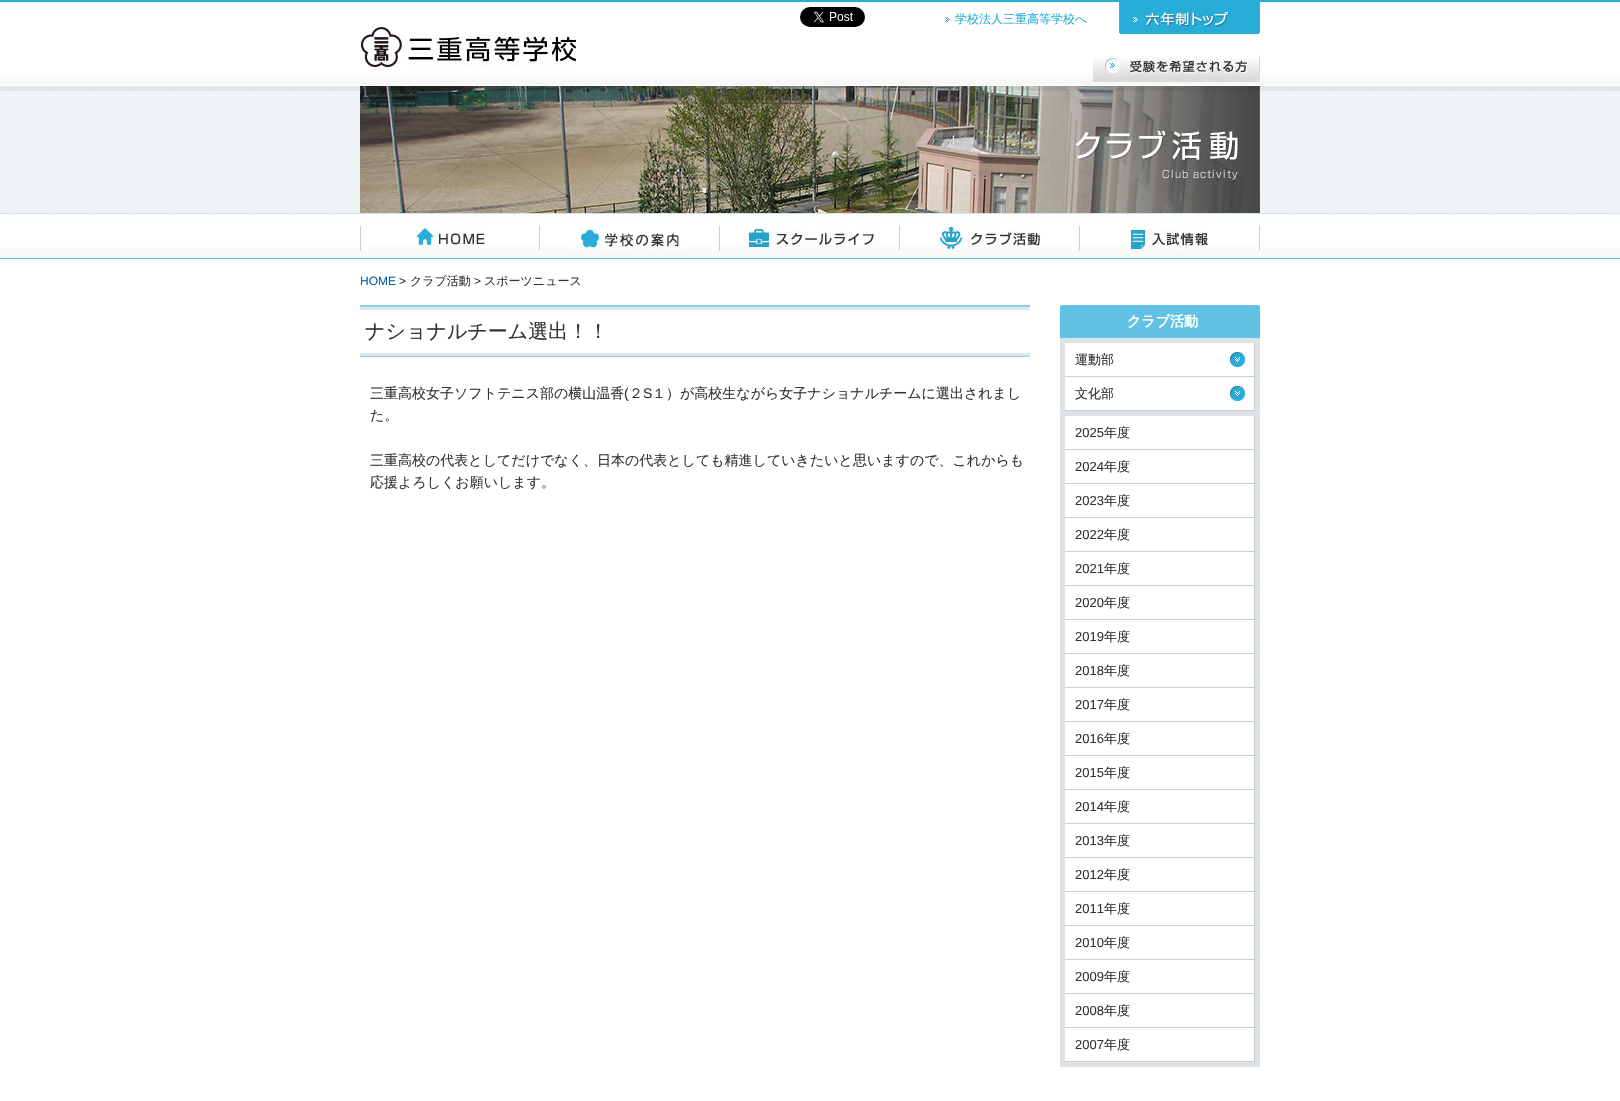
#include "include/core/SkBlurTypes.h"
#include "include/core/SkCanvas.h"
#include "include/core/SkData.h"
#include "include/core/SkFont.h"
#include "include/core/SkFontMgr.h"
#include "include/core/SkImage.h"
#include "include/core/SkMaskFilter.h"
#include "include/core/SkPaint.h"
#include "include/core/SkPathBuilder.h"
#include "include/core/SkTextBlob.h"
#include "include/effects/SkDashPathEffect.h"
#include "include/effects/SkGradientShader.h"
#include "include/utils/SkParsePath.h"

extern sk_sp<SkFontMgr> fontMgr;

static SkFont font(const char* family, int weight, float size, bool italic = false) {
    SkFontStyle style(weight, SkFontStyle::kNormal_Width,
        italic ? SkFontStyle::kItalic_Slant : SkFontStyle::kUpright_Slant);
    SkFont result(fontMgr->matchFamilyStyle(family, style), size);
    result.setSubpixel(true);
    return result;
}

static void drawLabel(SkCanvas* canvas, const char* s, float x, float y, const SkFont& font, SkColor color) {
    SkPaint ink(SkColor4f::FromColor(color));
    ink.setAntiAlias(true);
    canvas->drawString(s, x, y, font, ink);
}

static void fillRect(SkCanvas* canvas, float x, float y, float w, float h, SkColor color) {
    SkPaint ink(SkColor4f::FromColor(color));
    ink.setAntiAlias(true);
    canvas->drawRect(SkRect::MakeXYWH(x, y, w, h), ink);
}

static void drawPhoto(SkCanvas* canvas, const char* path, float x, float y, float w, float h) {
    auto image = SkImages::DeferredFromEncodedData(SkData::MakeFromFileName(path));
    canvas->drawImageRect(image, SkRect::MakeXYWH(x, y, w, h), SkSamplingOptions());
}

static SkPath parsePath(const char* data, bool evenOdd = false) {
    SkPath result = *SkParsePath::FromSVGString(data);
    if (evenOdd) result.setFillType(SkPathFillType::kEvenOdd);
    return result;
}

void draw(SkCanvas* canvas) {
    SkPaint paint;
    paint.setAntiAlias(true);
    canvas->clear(0xFFFFFFFF);
    drawPhoto(canvas, "assets/img1.png", 0, 73, 1620, 12);
    fillRect(canvas, 0, 0, 1620, 2, 0xFF28ADD9);
    drawPhoto(canvas, "assets/img2.png", 800, 7, 65, 20);
    drawPhoto(canvas, "assets/img3.png", 945, 17, 5, 5);
    SkFont font1 = font("WenQuanYi Zen Hei", 500, 12);
    drawLabel(canvas, "学校法人三重高等学校へ", 955, 23, font1, 0xFF28ADD9);
    drawPhoto(canvas, "assets/img4.png", 1119, 2, 141, 32);
    drawPhoto(canvas, "assets/img5.png", 361, 27, 215, 40);
    drawPhoto(canvas, "assets/img6.png", 1093, 55, 167, 27);
    drawPhoto(canvas, "assets/img7.png", 0, 86, 1620, 127);
    drawPhoto(canvas, "assets/img8.png", 360, 86, 900, 127);
    drawPhoto(canvas, "assets/img9.png", 0, 213, 1620, 46);
    drawPhoto(canvas, "assets/img10.png", 360, 221, 180, 38);
    drawPhoto(canvas, "assets/img11.png", 540, 225, 180, 34);
    drawPhoto(canvas, "assets/img12.png", 720, 224, 180, 35);
    drawPhoto(canvas, "assets/img13.png", 900, 221, 180, 38);
    drawPhoto(canvas, "assets/img14.png", 1080, 225, 180, 34);
    SkFont font2 = font("Liberation Sans", 400, 12);
    drawLabel(canvas, "HOME", 360, 285, font2, 0xFF0161BA);
    drawLabel(canvas, ">", 399, 285, font2, 0xFF333333);
    drawLabel(canvas, "クラブ活動", 410, 285, font1, 0xFF333333);
    drawLabel(canvas, ">", 474, 285, font2, 0xFF333333);
    drawLabel(canvas, "スポーツニュース", 484, 285, font1, 0xFF333333);
    drawPhoto(canvas, "assets/img15.png", 360, 305, 670, 52);
    SkFont font3 = font("WenQuanYi Zen Hei", 500, 20);
    drawLabel(canvas, "ナショナルチーム選出！！", 365, 338, font3, 0xFF333333);
    SkFont font4 = font("WenQuanYi Zen Hei", 500, 14);
    drawLabel(canvas, "三重高校女子ソフトテニス部の横山温香", 370, 398, font4, 0xFF333333);
    SkFont font5 = font("Liberation Sans", 400, 14);
    drawLabel(canvas, "(", 624, 398, font5, 0xFF333333);
    drawLabel(canvas, "２", 629, 398, font4, 0xFF333333);
    drawLabel(canvas, "S", 643, 398, font5, 0xFF333333);
    drawLabel(canvas, "１）が高校生ながら女子ナショナルチームに選出されまし", 652, 398, font4, 0xFF333333);
    drawLabel(canvas, "た。", 370, 420, font4, 0xFF333333);
    drawLabel(canvas, "三重高校の代表としてだけでなく、日本の代表としても精進していきたいと思いますので、これからも", 370, 465, font4, 0xFF333333);
    drawLabel(canvas, "応援よろしくお願いします。", 370, 487, font4, 0xFF333333);
    paint.setColor(0xFF61C2E3);
    canvas->drawPath(parsePath("M1062 305H1258C1259 305 1260 306 1260 307V338H1060V307C1060 306 1061 305 1062 305Z"), paint);
    SkFont font6 = font("WenQuanYi Zen Hei", 700, 14);
    drawLabel(canvas, "クラブ活動", 1127, 326, font6, 0xFFFFFFFF);
    paint.setColor(0xFFDEE2E4);
    canvas->drawPath(parsePath("M1060 338H1260V409C1260 410 1259 411 1258 411H1062C1061 411 1060 410 1060 409Z"), paint);
    fillRect(canvas, 1065, 343, 189, 33, 0xFFFFFFFF);
    drawPhoto(canvas, "assets/img16.png", 1230, 352, 15, 15);
    fillRect(canvas, 1254, 343, 1, 68, 0xFFC6CFD3);
    fillRect(canvas, 1065, 376, 190, 1, 0xFFC6CFD3);
    SkFont font7 = font("WenQuanYi Zen Hei", 500, 13);
    drawLabel(canvas, "運動部", 1075, 364, font7, 0xFF333333);
    fillRect(canvas, 1065, 377, 189, 33, 0xFFFFFFFF);
    drawPhoto(canvas, "assets/img16.png", 1230, 386, 15, 15);
    fillRect(canvas, 1065, 410, 190, 1, 0xFFC6CFD3);
    drawLabel(canvas, "文化部", 1075, 398, font7, 0xFF333333);
    canvas->drawPath(parsePath("M1060 411H1260V1065C1260 1066 1259 1067 1258 1067H1062C1061 1067 1060 1066 1060 1065Z"), paint);
    fillRect(canvas, 1065, 416, 189, 33, 0xFFFFFFFF);
    fillRect(canvas, 1254, 416, 1, 646, 0xFFC6CFD3);
    fillRect(canvas, 1065, 449, 190, 1, 0xFFC6CFD3);
    SkFont font8 = font("Liberation Sans", 400, 13);
    drawLabel(canvas, "2025", 1075, 437, font8, 0xFF333333);
    drawLabel(canvas, "年度", 1104, 437, font7, 0xFF333333);
    fillRect(canvas, 1065, 450, 189, 33, 0xFFFFFFFF);
    fillRect(canvas, 1065, 483, 190, 1, 0xFFC6CFD3);
    drawLabel(canvas, "2024", 1075, 471, font8, 0xFF333333);
    drawLabel(canvas, "年度", 1104, 471, font7, 0xFF333333);
    fillRect(canvas, 1065, 484, 189, 33, 0xFFFFFFFF);
    fillRect(canvas, 1065, 517, 190, 1, 0xFFC6CFD3);
    drawLabel(canvas, "2023", 1075, 505, font8, 0xFF333333);
    drawLabel(canvas, "年度", 1104, 505, font7, 0xFF333333);
    fillRect(canvas, 1065, 518, 189, 33, 0xFFFFFFFF);
    fillRect(canvas, 1065, 551, 190, 1, 0xFFC6CFD3);
    drawLabel(canvas, "2022", 1075, 539, font8, 0xFF333333);
    drawLabel(canvas, "年度", 1104, 539, font7, 0xFF333333);
    fillRect(canvas, 1065, 552, 189, 33, 0xFFFFFFFF);
    fillRect(canvas, 1065, 585, 190, 1, 0xFFC6CFD3);
    drawLabel(canvas, "2021", 1075, 573, font8, 0xFF333333);
    drawLabel(canvas, "年度", 1104, 573, font7, 0xFF333333);
    fillRect(canvas, 1065, 586, 189, 33, 0xFFFFFFFF);
    fillRect(canvas, 1065, 619, 190, 1, 0xFFC6CFD3);
    drawLabel(canvas, "2020", 1075, 607, font8, 0xFF333333);
    drawLabel(canvas, "年度", 1104, 607, font7, 0xFF333333);
    fillRect(canvas, 1065, 620, 189, 33, 0xFFFFFFFF);
    fillRect(canvas, 1065, 653, 190, 1, 0xFFC6CFD3);
    drawLabel(canvas, "2019", 1075, 641, font8, 0xFF333333);
    drawLabel(canvas, "年度", 1104, 641, font7, 0xFF333333);
    fillRect(canvas, 1065, 654, 189, 33, 0xFFFFFFFF);
    fillRect(canvas, 1065, 687, 190, 1, 0xFFC6CFD3);
    drawLabel(canvas, "2018", 1075, 675, font8, 0xFF333333);
    drawLabel(canvas, "年度", 1104, 675, font7, 0xFF333333);
    fillRect(canvas, 1065, 688, 189, 33, 0xFFFFFFFF);
    fillRect(canvas, 1065, 721, 190, 1, 0xFFC6CFD3);
    drawLabel(canvas, "2017", 1075, 709, font8, 0xFF333333);
    drawLabel(canvas, "年度", 1104, 709, font7, 0xFF333333);
    fillRect(canvas, 1065, 722, 189, 33, 0xFFFFFFFF);
    fillRect(canvas, 1065, 755, 190, 1, 0xFFC6CFD3);
    drawLabel(canvas, "2016", 1075, 743, font8, 0xFF333333);
    drawLabel(canvas, "年度", 1104, 743, font7, 0xFF333333);
    fillRect(canvas, 1065, 756, 189, 33, 0xFFFFFFFF);
    fillRect(canvas, 1065, 789, 190, 1, 0xFFC6CFD3);
    drawLabel(canvas, "2015", 1075, 777, font8, 0xFF333333);
    drawLabel(canvas, "年度", 1104, 777, font7, 0xFF333333);
    fillRect(canvas, 1065, 790, 189, 33, 0xFFFFFFFF);
    fillRect(canvas, 1065, 823, 190, 1, 0xFFC6CFD3);
    drawLabel(canvas, "2014", 1075, 811, font8, 0xFF333333);
    drawLabel(canvas, "年度", 1104, 811, font7, 0xFF333333);
    fillRect(canvas, 1065, 824, 189, 33, 0xFFFFFFFF);
    fillRect(canvas, 1065, 857, 190, 1, 0xFFC6CFD3);
    drawLabel(canvas, "2013", 1075, 845, font8, 0xFF333333);
    drawLabel(canvas, "年度", 1104, 845, font7, 0xFF333333);
    fillRect(canvas, 1065, 858, 189, 33, 0xFFFFFFFF);
    fillRect(canvas, 1065, 891, 190, 1, 0xFFC6CFD3);
    drawLabel(canvas, "2012", 1075, 879, font8, 0xFF333333);
    drawLabel(canvas, "年度", 1104, 879, font7, 0xFF333333);
    fillRect(canvas, 1065, 892, 189, 33, 0xFFFFFFFF);
    fillRect(canvas, 1065, 925, 190, 1, 0xFFC6CFD3);
    drawLabel(canvas, "2011", 1075, 913, font8, 0xFF333333);
    drawLabel(canvas, "年度", 1104, 913, font7, 0xFF333333);
    fillRect(canvas, 1065, 926, 189, 33, 0xFFFFFFFF);
    fillRect(canvas, 1065, 959, 190, 1, 0xFFC6CFD3);
    drawLabel(canvas, "2010", 1075, 947, font8, 0xFF333333);
    drawLabel(canvas, "年度", 1104, 947, font7, 0xFF333333);
    fillRect(canvas, 1065, 960, 189, 33, 0xFFFFFFFF);
    fillRect(canvas, 1065, 993, 190, 1, 0xFFC6CFD3);
    drawLabel(canvas, "2009", 1075, 981, font8, 0xFF333333);
    drawLabel(canvas, "年度", 1104, 981, font7, 0xFF333333);
    fillRect(canvas, 1065, 994, 189, 33, 0xFFFFFFFF);
    fillRect(canvas, 1065, 1027, 190, 1, 0xFFC6CFD3);
    drawLabel(canvas, "2008", 1075, 1015, font8, 0xFF333333);
    drawLabel(canvas, "年度", 1104, 1015, font7, 0xFF333333);
    fillRect(canvas, 1065, 1028, 189, 33, 0xFFFFFFFF);
    fillRect(canvas, 1065, 1061, 190, 1, 0xFFC6CFD3);
    drawLabel(canvas, "2007", 1075, 1049, font8, 0xFF333333);
    drawLabel(canvas, "年度", 1104, 1049, font7, 0xFF333333);
}
